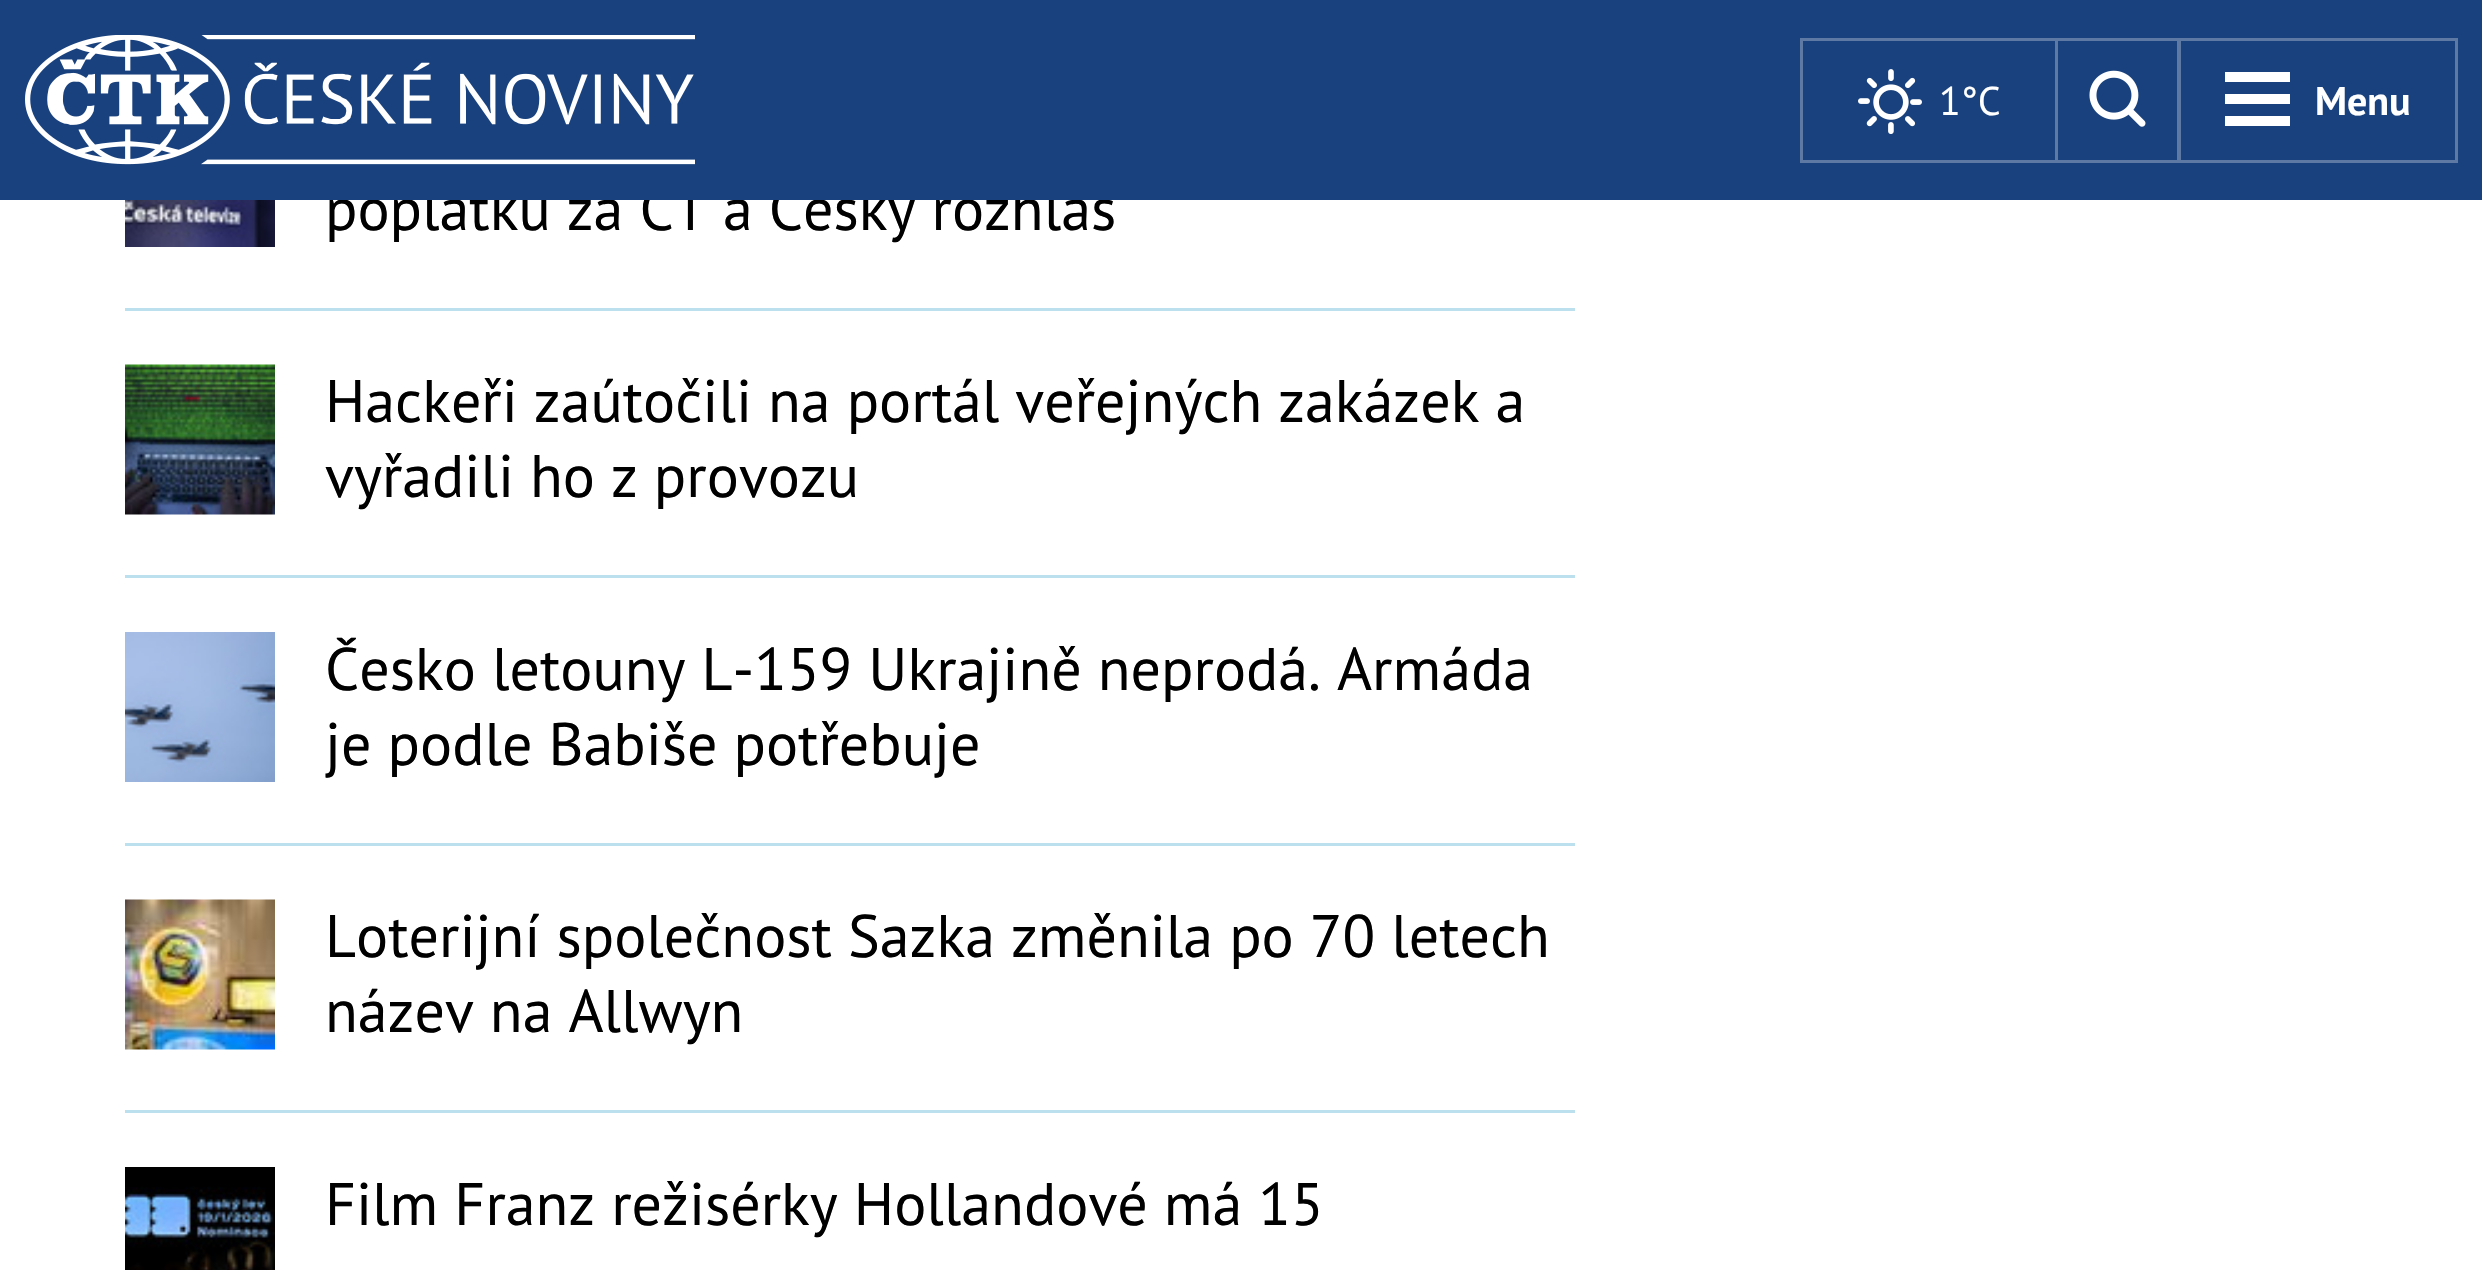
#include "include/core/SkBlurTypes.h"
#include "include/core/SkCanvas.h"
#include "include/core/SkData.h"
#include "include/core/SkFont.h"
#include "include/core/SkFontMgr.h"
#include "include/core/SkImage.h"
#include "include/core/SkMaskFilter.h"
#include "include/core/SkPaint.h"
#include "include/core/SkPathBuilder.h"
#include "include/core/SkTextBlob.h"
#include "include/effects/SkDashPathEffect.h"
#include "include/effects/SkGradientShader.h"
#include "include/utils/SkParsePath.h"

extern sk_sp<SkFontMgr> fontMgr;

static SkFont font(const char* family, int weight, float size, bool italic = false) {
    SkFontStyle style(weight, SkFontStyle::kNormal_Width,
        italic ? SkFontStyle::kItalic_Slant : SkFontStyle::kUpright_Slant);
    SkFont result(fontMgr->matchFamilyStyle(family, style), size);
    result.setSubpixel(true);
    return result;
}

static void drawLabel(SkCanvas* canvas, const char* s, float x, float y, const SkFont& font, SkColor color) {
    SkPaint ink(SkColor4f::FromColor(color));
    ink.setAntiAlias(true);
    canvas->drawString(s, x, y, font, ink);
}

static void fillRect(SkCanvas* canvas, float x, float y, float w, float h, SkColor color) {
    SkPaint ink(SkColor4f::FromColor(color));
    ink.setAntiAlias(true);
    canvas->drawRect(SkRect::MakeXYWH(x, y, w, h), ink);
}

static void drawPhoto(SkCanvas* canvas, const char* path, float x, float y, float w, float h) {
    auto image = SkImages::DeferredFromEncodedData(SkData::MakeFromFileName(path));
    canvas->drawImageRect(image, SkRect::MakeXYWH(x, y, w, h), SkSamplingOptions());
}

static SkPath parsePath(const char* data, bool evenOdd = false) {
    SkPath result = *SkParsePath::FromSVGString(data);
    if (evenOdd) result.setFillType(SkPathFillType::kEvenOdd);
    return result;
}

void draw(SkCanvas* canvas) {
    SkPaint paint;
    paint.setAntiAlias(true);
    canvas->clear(0xFFFFFFFF);
    SkFont font1 = font("PT Sans", 400, 60);
    drawLabel(canvas, "poplatků za ČT a Český rozhlas", 325, 230, font1, 0xFF000000);
    fillRect(canvas, 0, 0, 2482, 200, 0xFF19417D);
    fillRect(canvas, 1800, 38, 255, 3, 0xFF5E7AA4);
    fillRect(canvas, 1800, 160, 255, 3, 0xFF5E7AA4);
    fillRect(canvas, 1800, 38, 3, 125, 0xFF5E7AA4);
    drawPhoto(canvas, "assets/img1.png", 1858, 69, 64, 65);
    SkFont font2 = font("PT Sans", 400, 40);
    drawLabel(canvas, "1°C", 1939, 115, font2, 0xFFFFFFFF);
    paint.setStroke(true);
    paint.setStrokeWidth(3);
    paint.setColor(0xFF5E7AA4);
    canvas->drawRect(SkRect::MakeXYWH(2179.5f, 39.5f, 277, 122), paint);
    canvas->drawRect(SkRect::MakeXYWH(2056.5f, 39.5f, 122, 122), paint);
    drawPhoto(canvas, "assets/img2.png", 2089, 70, 57, 57);
    drawPhoto(canvas, "assets/img3.png", 25, 35, 670, 130);
    paint.setStroke(false);
    paint.setColor(0xFFFFFFFF);
    canvas->drawPath(parsePath("M2225 126V116H2290V126ZM2225 104V94H2290V104ZM2225 82V72H2290V82Z"), paint);
    SkFont font3 = font("PT Sans", 700, 40);
    drawLabel(canvas, "Menu", 2315, 115, font3, 0xFFFFFFFF);
    drawPhoto(canvas, "assets/img4.png", 125, 200, 150, 47);
    fillRect(canvas, 125, 308, 1450, 3, 0xFFBCE0ED);
    drawPhoto(canvas, "assets/img5.png", 125, 364, 150, 151);
    drawLabel(canvas, "Hackeři zaútočili na portál veřejných zakázek a", 325, 422, font1, 0xFF000000);
    drawLabel(canvas, "vyřadili ho z provozu", 325, 497, font1, 0xFF000000);
    fillRect(canvas, 125, 575, 1450, 3, 0xFFBCE0ED);
    drawPhoto(canvas, "assets/img6.png", 125, 632, 150, 150);
    drawLabel(canvas, "Česko letouny L-159 Ukrajině neprodá. Armáda", 325, 690, font1, 0xFF000000);
    drawLabel(canvas, "je podle Babiše potřebuje", 325, 765, font1, 0xFF000000);
    fillRect(canvas, 125, 843, 1450, 3, 0xFFBCE0ED);
    drawPhoto(canvas, "assets/img7.png", 125, 899, 150, 151);
    drawLabel(canvas, "Loterijní společnost Sazka změnila po 70 letech", 325, 957, font1, 0xFF000000);
    drawLabel(canvas, "název na Allwyn", 325, 1032, font1, 0xFF000000);
    fillRect(canvas, 125, 1110, 1450, 3, 0xFFBCE0ED);
    drawPhoto(canvas, "assets/img8.png", 125, 1167, 150, 103);
    drawLabel(canvas, "Film Franz režisérky Hollandové má 15", 325, 1225, font1, 0xFF000000);
}
